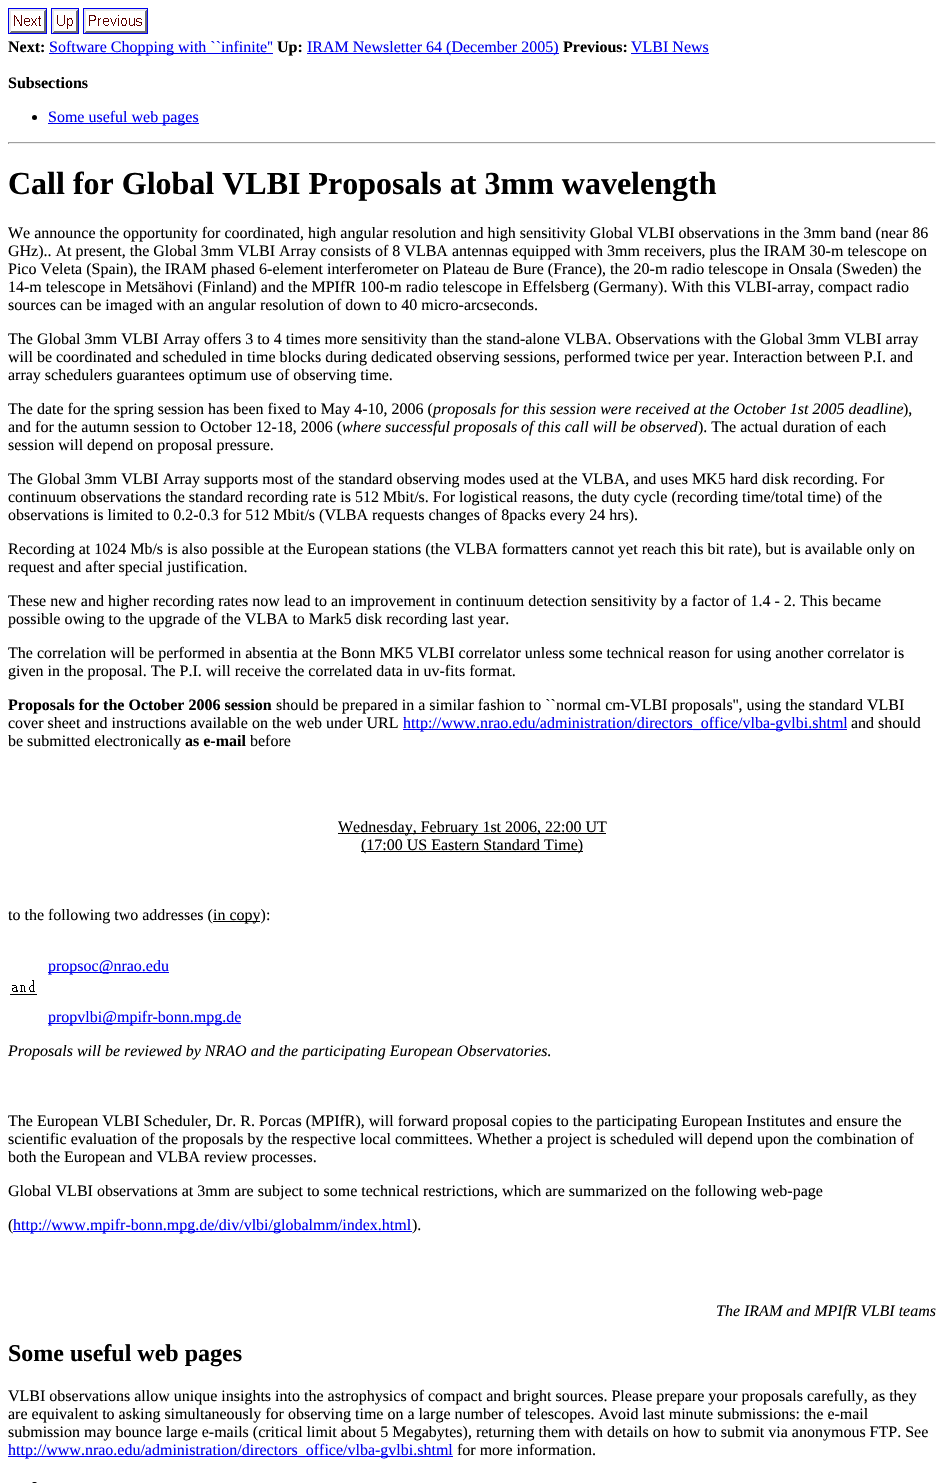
#include "include/core/SkBlurTypes.h"
#include "include/core/SkCanvas.h"
#include "include/core/SkData.h"
#include "include/core/SkFont.h"
#include "include/core/SkFontMgr.h"
#include "include/core/SkImage.h"
#include "include/core/SkMaskFilter.h"
#include "include/core/SkPaint.h"
#include "include/core/SkPathBuilder.h"
#include "include/core/SkTextBlob.h"
#include "include/effects/SkDashPathEffect.h"
#include "include/effects/SkGradientShader.h"
#include "include/utils/SkParsePath.h"

extern sk_sp<SkFontMgr> fontMgr;

static SkFont font(const char* family, int weight, float size, bool italic = false) {
    SkFontStyle style(weight, SkFontStyle::kNormal_Width,
        italic ? SkFontStyle::kItalic_Slant : SkFontStyle::kUpright_Slant);
    SkFont result(fontMgr->matchFamilyStyle(family, style), size);
    result.setSubpixel(true);
    return result;
}

static void drawLabel(SkCanvas* canvas, const char* s, float x, float y, const SkFont& font, SkColor color) {
    SkPaint ink(SkColor4f::FromColor(color));
    ink.setAntiAlias(true);
    canvas->drawString(s, x, y, font, ink);
}

static void fillRect(SkCanvas* canvas, float x, float y, float w, float h, SkColor color) {
    SkPaint ink(SkColor4f::FromColor(color));
    ink.setAntiAlias(true);
    canvas->drawRect(SkRect::MakeXYWH(x, y, w, h), ink);
}

static void fillRRect(SkCanvas* canvas, float x, float y, float w, float h, float radius, SkColor color) {
    SkPaint ink(SkColor4f::FromColor(color));
    ink.setAntiAlias(true);
    canvas->drawRoundRect(SkRect::MakeXYWH(x, y, w, h), radius, radius, ink);
}

static void drawPhoto(SkCanvas* canvas, const char* path, float x, float y, float w, float h) {
    auto image = SkImages::DeferredFromEncodedData(SkData::MakeFromFileName(path));
    canvas->drawImageRect(image, SkRect::MakeXYWH(x, y, w, h), SkSamplingOptions());
}

void draw(SkCanvas* canvas) {
    SkPaint paint;
    paint.setAntiAlias(true);
    canvas->clear(0xFFFFFFFF);
    paint.setStroke(true);
    paint.setStrokeWidth(1);
    paint.setColor(0xFF0000ED);
    canvas->drawRect(SkRect::MakeXYWH(8.5f, 8.5f, 38, 25), paint);
    canvas->drawRect(SkRect::MakeXYWH(51.5f, 8.5f, 27, 25), paint);
    canvas->drawRect(SkRect::MakeXYWH(83.5f, 8.5f, 64, 25), paint);
    drawPhoto(canvas, "assets/img1.png", 9, 9, 37, 24);
    drawPhoto(canvas, "assets/img2.png", 52, 9, 26, 24);
    drawPhoto(canvas, "assets/img3.png", 84, 9, 63, 24);
    SkFont font1 = font("Liberation Serif", 700, 16);
    drawLabel(canvas, "Next:", 8, 52, font1, 0xFF000000);
    fillRect(canvas, 49, 53, 224, 1, 0xFF0000ED);
    SkFont font2 = font("Liberation Serif", 400, 16);
    drawLabel(canvas, "Software Chopping with ``infinite''", 49, 52, font2, 0xFF0000ED);
    drawLabel(canvas, "Up:", 277, 52, font1, 0xFF000000);
    fillRect(canvas, 307, 53, 252, 1, 0xFF0000ED);
    drawLabel(canvas, "IRAM Newsletter 64 (December 2005)", 307, 52, font2, 0xFF0000ED);
    drawLabel(canvas, "Previous:", 563, 52, font1, 0xFF000000);
    drawLabel(canvas, "VLBI News", 631, 52, font2, 0xFF0000ED);
    fillRect(canvas, 631, 53, 78, 1, 0xFF0000ED);
    drawLabel(canvas, "Subsections", 8, 88, font1, 0xFF000000);
    paint.setStroke(false);
    paint.setColor(0xFF000000);
    canvas->drawCircle(34.5f, 117.5f, 2.5f, paint);
    fillRect(canvas, 48, 123, 151, 1, 0xFF0000ED);
    drawLabel(canvas, "Some useful web pages", 48, 122, font2, 0xFF0000ED);
    fillRect(canvas, 8, 142, 928, 1, 0xFF9F9F9F);
    fillRect(canvas, 935, 142, 1, 2, 0xFFEEEEEE);
    fillRect(canvas, 8, 143, 928, 1, 0xFFEEEEEE);
    fillRect(canvas, 8, 142, 1, 2, 0xFF9F9F9F);
    SkFont font3 = font("Liberation Serif", 700, 32);
    drawLabel(canvas, "Call for Global VLBI Proposals at 3mm wavelength", 8, 194, font3, 0xFF000000);
    drawLabel(canvas, "We announce the opportunity for coordinated, high angular resolution and high sensitivity Global VLBI observations in the 3mm band (near 86", 8, 238, font2, 0xFF000000);
    drawLabel(canvas, "GHz).. At present, the Global 3mm VLBI Array consists of 8 VLBA antennas equipped with 3mm receivers, plus the IRAM 30-m telescope on", 8, 256, font2, 0xFF000000);
    drawLabel(canvas, "Pico Veleta (Spain), the IRAM phased 6-element interferometer on Plateau de Bure (France), the 20-m radio telescope in Onsala (Sweden) the", 8, 274, font2, 0xFF000000);
    drawLabel(canvas, "14-m telescope in Metsähovi (Finland) and the MPIfR 100-m radio telescope in Effelsberg (Germany). With this VLBI-array, compact radio", 8, 292, font2, 0xFF000000);
    drawLabel(canvas, "sources can be imaged with an angular resolution of down to 40 micro-arcseconds.", 8, 310, font2, 0xFF000000);
    drawLabel(canvas, "The Global 3mm VLBI Array offers 3 to 4 times more sensitivity than the stand-alone VLBA. Observations with the Global 3mm VLBI array", 8, 344, font2, 0xFF000000);
    drawLabel(canvas, "will be coordinated and scheduled in time blocks during dedicated observing sessions, performed twice per year. Interaction between P.I. and", 8, 362, font2, 0xFF000000);
    drawLabel(canvas, "array schedulers guarantees optimum use of observing time.", 8, 380, font2, 0xFF000000);
    drawLabel(canvas, "The date for the spring session has been fixed to May 4-10, 2006 (", 8, 414, font2, 0xFF000000);
    SkFont font4 = font("Liberation Serif", 400, 16, true);
    drawLabel(canvas, "proposals for this session were received at the October 1st 2005 deadline", 433, 414, font4, 0xFF000000);
    drawLabel(canvas, "),", 903, 414, font2, 0xFF000000);
    drawLabel(canvas, "and for the autumn session to October 12-18, 2006 (", 8, 432, font2, 0xFF000000);
    drawLabel(canvas, "where successful proposals of this call will be observed", 342, 432, font4, 0xFF000000);
    drawLabel(canvas, "). The actual duration of each", 698, 432, font2, 0xFF000000);
    drawLabel(canvas, "session will depend on proposal pressure.", 8, 450, font2, 0xFF000000);
    drawLabel(canvas, "The Global 3mm VLBI Array supports most of the standard observing modes used at the VLBA, and uses MK5 hard disk recording. For", 8, 484, font2, 0xFF000000);
    drawLabel(canvas, "continuum observations the standard recording rate is 512 Mbit/s. For logistical reasons, the duty cycle (recording time/total time) of the", 8, 502, font2, 0xFF000000);
    drawLabel(canvas, "observations is limited to 0.2-0.3 for 512 Mbit/s (VLBA requests changes of 8packs every 24 hrs).", 8, 520, font2, 0xFF000000);
    drawLabel(canvas, "Recording at 1024 Mb/s is also possible at the European stations (the VLBA formatters cannot yet reach this bit rate), but is available only on", 8, 554, font2, 0xFF000000);
    drawLabel(canvas, "request and after special justification.", 8, 572, font2, 0xFF000000);
    drawLabel(canvas, "These new and higher recording rates now lead to an improvement in continuum detection sensitivity by a factor of 1.4 - 2. This became", 8, 606, font2, 0xFF000000);
    drawLabel(canvas, "possible owing to the upgrade of the VLBA to Mark5 disk recording last year.", 8, 624, font2, 0xFF000000);
    drawLabel(canvas, "The correlation will be performed in absentia at the Bonn MK5 VLBI correlator unless some technical reason for using another correlator is", 8, 658, font2, 0xFF000000);
    drawLabel(canvas, "given in the proposal. The P.I. will receive the correlated data in uv-fits format.", 8, 676, font2, 0xFF000000);
    drawLabel(canvas, "Proposals for the October 2006 session", 8, 710, font1, 0xFF000000);
    drawLabel(canvas, "should be prepared in a similar fashion to ``normal cm-VLBI proposals'', using the standard VLBI", 276, 710, font2, 0xFF000000);
    drawLabel(canvas, "cover sheet and instructions available on the web under URL", 8, 728, font2, 0xFF000000);
    fillRect(canvas, 403, 729, 444, 1, 0xFF0000ED);
    drawLabel(canvas, "http://www.nrao.edu/administration/directors_office/vlba-gvlbi.shtml", 403, 728, font2, 0xFF0000ED);
    drawLabel(canvas, "and should", 851, 728, font2, 0xFF000000);
    drawLabel(canvas, "be submitted electronically", 8, 746, font2, 0xFF000000);
    drawLabel(canvas, "as e-mail", 185, 746, font1, 0xFF000000);
    drawLabel(canvas, "before", 250, 746, font2, 0xFF000000);
    fillRect(canvas, 338, 833, 268, 1, 0xFF000000);
    drawLabel(canvas, "Wednesday, February 1st 2006, 22:00 UT", 338, 832, font2, 0xFF000000);
    fillRect(canvas, 361, 851, 222, 1, 0xFF000000);
    drawLabel(canvas, "(17:00 US Eastern Standard Time)", 361, 850, font2, 0xFF000000);
    drawLabel(canvas, "to the following two addresses (", 8, 920, font2, 0xFF000000);
    fillRect(canvas, 213, 921, 47, 1, 0xFF000000);
    drawLabel(canvas, "in copy):", 213, 920, font2, 0xFF000000);
    fillRect(canvas, 48, 972, 121, 1, 0xFF0000ED);
    drawLabel(canvas, "propsoc@nrao.edu", 48, 971, font2, 0xFF0000ED);
    drawPhoto(canvas, "assets/img4.png", 10, 980, 27, 15);
    fillRect(canvas, 48, 1023, 193, 1, 0xFF0000ED);
    drawLabel(canvas, "propvlbi@mpifr-bonn.mpg.de", 48, 1022, font2, 0xFF0000ED);
    drawLabel(canvas, "Proposals will be reviewed by NRAO and the participating European Observatories.", 8, 1056, font4, 0xFF000000);
    drawLabel(canvas, "The European VLBI Scheduler, Dr. R. Porcas (MPIfR), will forward proposal copies to the participating European Institutes and ensure the", 8, 1126, font2, 0xFF000000);
    drawLabel(canvas, "scientific evaluation of the proposals by the respective local committees. Whether a project is scheduled will depend upon the combination of", 8, 1144, font2, 0xFF000000);
    drawLabel(canvas, "both the European and VLBA review processes.", 8, 1162, font2, 0xFF000000);
    drawLabel(canvas, "Global VLBI observations at 3mm are subject to some technical restrictions, which are summarized on the following web-page", 8, 1196, font2, 0xFF000000);
    drawLabel(canvas, "(", 8, 1230, font2, 0xFF000000);
    fillRect(canvas, 13, 1231, 399, 1, 0xFF0000ED);
    drawLabel(canvas, "http://www.mpifr-bonn.mpg.de/div/vlbi/globalmm/index.html", 13, 1230, font2, 0xFF0000ED);
    drawLabel(canvas, ").", 412, 1230, font2, 0xFF000000);
    drawLabel(canvas, "The IRAM and MPIfR VLBI teams", 716, 1316, font4, 0xFF000000);
    SkFont font5 = font("Liberation Serif", 700, 24);
    drawLabel(canvas, "Some useful web pages", 8, 1361, font5, 0xFF000000);
    drawLabel(canvas, "VLBI observations allow unique insights into the astrophysics of compact and bright sources. Please prepare your proposals carefully, as they", 8, 1401, font2, 0xFF000000);
    drawLabel(canvas, "are equivalent to asking simultaneously for observing time on a large number of telescopes. Avoid last minute submissions: the e-mail", 8, 1419, font2, 0xFF000000);
    drawLabel(canvas, "submission may bounce large e-mails (critical limit about 5 Megabytes), returning them with details on how to submit via anonymous FTP. See", 8, 1437, font2, 0xFF000000);
    fillRect(canvas, 8, 1456, 445, 1, 0xFF0000ED);
    drawLabel(canvas, "http://www.nrao.edu/administration/directors_office/vlba-gvlbi.shtml", 8, 1455, font2, 0xFF0000ED);
    drawLabel(canvas, "for more information.", 457, 1455, font2, 0xFF000000);
    fillRRect(canvas, 32, 1482, 5, 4, 2.5f, 0xFF000000);
}
